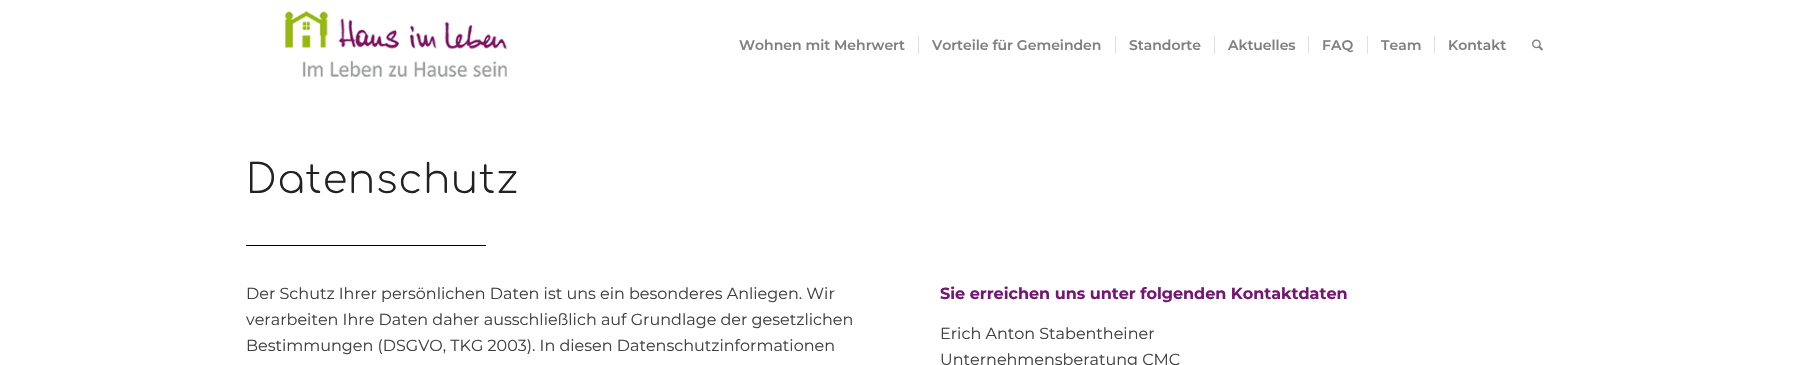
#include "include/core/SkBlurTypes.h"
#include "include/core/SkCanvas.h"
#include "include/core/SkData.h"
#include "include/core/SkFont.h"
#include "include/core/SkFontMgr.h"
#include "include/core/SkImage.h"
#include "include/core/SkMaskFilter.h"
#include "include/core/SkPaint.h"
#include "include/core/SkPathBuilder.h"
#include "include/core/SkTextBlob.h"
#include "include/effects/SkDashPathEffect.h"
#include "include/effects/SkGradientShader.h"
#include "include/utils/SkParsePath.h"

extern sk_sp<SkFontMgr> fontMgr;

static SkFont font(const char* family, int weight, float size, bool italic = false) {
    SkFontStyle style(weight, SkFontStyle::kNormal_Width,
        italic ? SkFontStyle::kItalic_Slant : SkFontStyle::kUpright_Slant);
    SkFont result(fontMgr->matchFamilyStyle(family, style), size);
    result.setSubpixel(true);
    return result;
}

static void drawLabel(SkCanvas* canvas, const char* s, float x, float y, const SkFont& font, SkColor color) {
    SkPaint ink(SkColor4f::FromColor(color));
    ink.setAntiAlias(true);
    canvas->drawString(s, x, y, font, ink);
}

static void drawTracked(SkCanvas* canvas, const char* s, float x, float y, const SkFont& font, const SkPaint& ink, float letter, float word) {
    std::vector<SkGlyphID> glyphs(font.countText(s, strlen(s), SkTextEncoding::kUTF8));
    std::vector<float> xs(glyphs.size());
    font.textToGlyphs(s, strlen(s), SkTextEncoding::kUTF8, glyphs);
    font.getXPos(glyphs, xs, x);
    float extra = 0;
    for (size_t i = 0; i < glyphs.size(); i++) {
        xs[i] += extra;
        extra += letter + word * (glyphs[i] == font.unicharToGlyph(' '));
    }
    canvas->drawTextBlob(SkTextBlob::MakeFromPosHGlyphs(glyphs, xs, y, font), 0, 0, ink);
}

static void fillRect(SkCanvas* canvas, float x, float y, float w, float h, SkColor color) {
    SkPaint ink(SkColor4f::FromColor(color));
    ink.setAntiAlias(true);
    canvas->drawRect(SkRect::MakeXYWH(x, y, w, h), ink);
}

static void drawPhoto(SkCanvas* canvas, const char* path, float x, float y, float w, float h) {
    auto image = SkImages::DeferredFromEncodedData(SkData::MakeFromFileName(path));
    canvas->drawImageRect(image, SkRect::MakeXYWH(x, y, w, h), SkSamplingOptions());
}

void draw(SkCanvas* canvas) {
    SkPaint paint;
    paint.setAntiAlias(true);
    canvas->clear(0xFFFFFFFF);
    drawPhoto(canvas, "assets/img1.png", 285, 11, 222, 66);
    SkFont font1 = font("Montserrat", 600, 14);
    drawLabel(canvas, "Wohnen mit Mehrwert", 739, 50, font1, 0xFF808080);
    drawLabel(canvas, "Vorteile für Gemeinden", 932, 50, font1, 0xFF808080);
    fillRect(canvas, 918, 36, 1, 18, 0xFFE1E1E1);
    drawLabel(canvas, "Standorte", 1129, 50, font1, 0xFF808080);
    fillRect(canvas, 1115, 36, 1, 18, 0xFFE1E1E1);
    drawLabel(canvas, "Aktuelles", 1228, 50, font1, 0xFF808080);
    fillRect(canvas, 1214, 36, 1, 18, 0xFFE1E1E1);
    drawLabel(canvas, "FAQ", 1322, 50, font1, 0xFF808080);
    fillRect(canvas, 1308, 36, 1, 18, 0xFFE1E1E1);
    drawLabel(canvas, "Team", 1381, 50, font1, 0xFF808080);
    fillRect(canvas, 1367, 36, 1, 18, 0xFFE1E1E1);
    drawLabel(canvas, "Kontakt", 1448, 50, font1, 0xFF808080);
    fillRect(canvas, 1434, 36, 1, 18, 0xFFE1E1E1);
    drawPhoto(canvas, "assets/img2.png", 1532, 39, 11, 12);
    SkFont font2 = font("Comfortaa", 300, 40);
    paint.setColor(0xFF222222);
    drawTracked(canvas, "Datenschutz", 246, 193, font2, paint, 1, 0);
    fillRect(canvas, 246, 245, 240, 1, 0xFF000000);
    SkFont font3 = font("Montserrat", 400, 16);
    drawLabel(canvas, "Der Schutz Ihrer persönlichen Daten ist uns ein besonderes Anliegen. Wir", 246, 299, font3, 0xFF404040);
    drawLabel(canvas, "verarbeiten Ihre Daten daher ausschließlich auf Grundlage der gesetzlichen", 246, 325, font3, 0xFF404040);
    drawLabel(canvas, "Bestimmungen (DSGVO, TKG 2003). In diesen Datenschutzinformationen", 246, 351, font3, 0xFF404040);
    SkFont font4 = font("Montserrat", 700, 16);
    drawLabel(canvas, "Sie erreichen uns unter folgenden Kontaktdaten", 940, 299, font4, 0xFF751675);
    drawLabel(canvas, "Erich Anton Stabentheiner", 940, 339, font3, 0xFF404040);
    drawLabel(canvas, "Unternehmensberatung CMC", 940, 365, font3, 0xFF404040);
}
